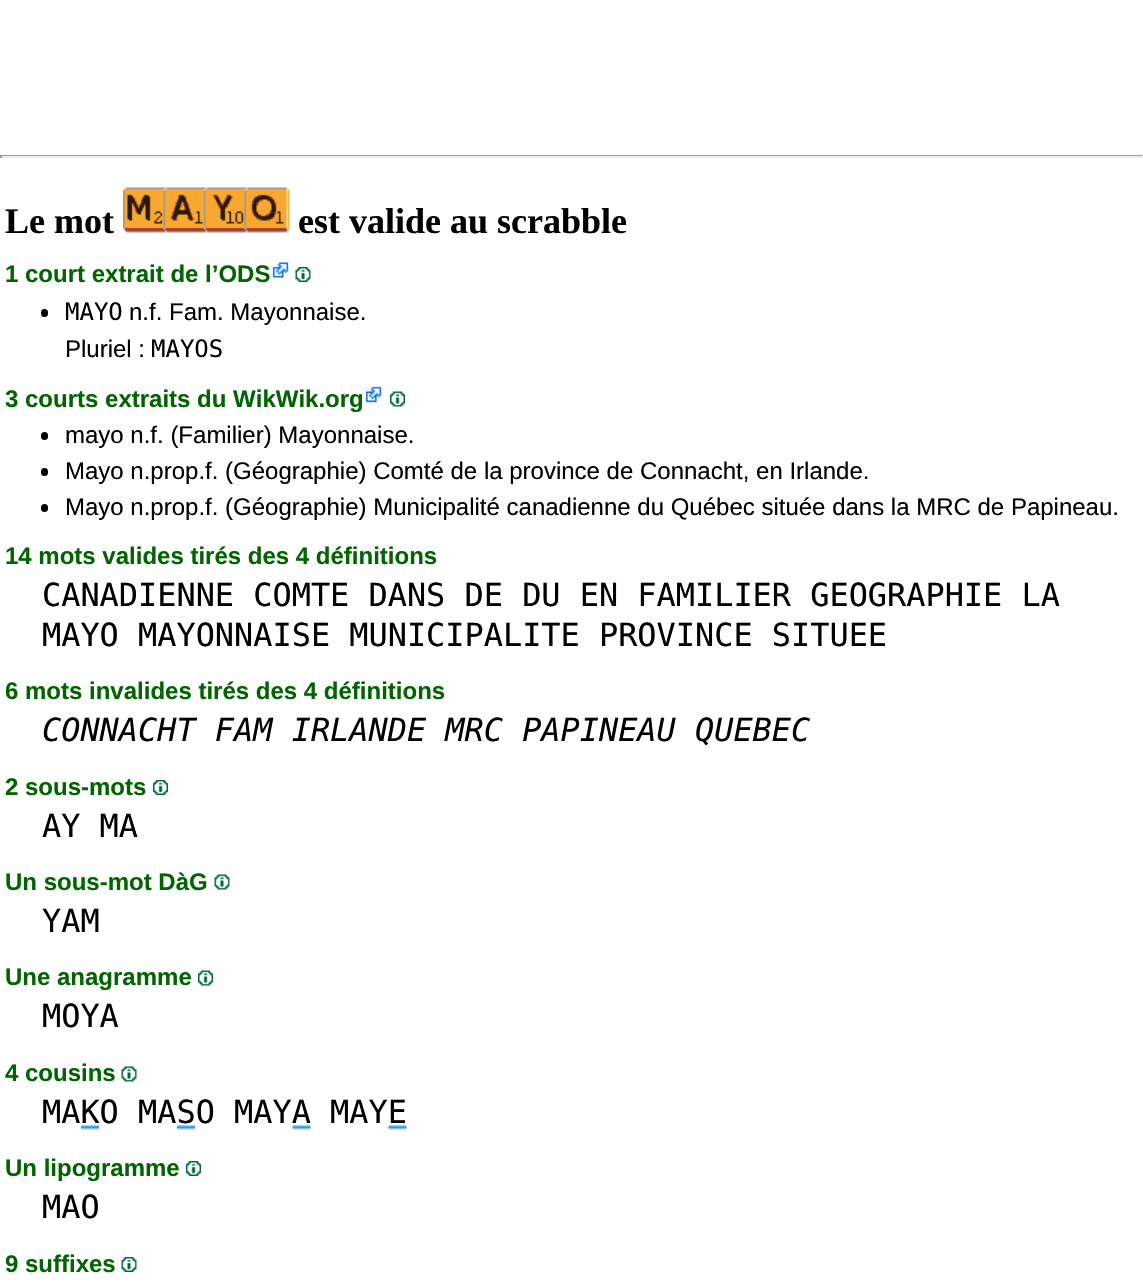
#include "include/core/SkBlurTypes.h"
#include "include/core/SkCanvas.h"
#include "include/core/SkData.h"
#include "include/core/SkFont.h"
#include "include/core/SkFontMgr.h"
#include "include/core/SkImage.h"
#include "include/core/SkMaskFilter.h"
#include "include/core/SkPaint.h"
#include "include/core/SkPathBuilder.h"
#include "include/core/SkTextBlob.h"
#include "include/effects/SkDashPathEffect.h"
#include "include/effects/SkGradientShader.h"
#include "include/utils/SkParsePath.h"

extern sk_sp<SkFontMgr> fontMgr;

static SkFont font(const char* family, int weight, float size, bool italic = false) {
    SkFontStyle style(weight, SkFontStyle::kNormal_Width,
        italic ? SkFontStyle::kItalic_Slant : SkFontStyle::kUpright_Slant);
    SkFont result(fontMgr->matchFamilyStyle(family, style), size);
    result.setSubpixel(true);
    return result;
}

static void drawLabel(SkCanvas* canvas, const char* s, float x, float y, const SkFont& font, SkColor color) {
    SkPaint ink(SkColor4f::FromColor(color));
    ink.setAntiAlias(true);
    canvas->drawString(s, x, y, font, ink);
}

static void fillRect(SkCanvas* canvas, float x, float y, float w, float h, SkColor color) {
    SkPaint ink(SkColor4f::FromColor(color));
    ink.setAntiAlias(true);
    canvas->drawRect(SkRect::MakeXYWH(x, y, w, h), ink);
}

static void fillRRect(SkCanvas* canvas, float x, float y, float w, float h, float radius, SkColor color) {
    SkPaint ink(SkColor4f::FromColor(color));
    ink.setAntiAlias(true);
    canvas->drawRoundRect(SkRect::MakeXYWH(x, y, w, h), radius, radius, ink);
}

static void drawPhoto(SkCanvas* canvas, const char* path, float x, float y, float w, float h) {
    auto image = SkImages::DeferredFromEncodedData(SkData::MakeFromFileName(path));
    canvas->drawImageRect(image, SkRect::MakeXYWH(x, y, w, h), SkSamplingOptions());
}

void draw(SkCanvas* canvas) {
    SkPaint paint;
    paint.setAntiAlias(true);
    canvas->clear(0xFFFFFFFF);
    fillRect(canvas, 0, 155, 1143, 1, 0xFF9F9F9F);
    fillRect(canvas, 1142, 155, 1, 3, 0xFFEEEEEE);
    fillRect(canvas, 0, 156, 1143, 2, 0xFFEEEEEE);
    fillRect(canvas, 0, 155, 2, 3, 0xFF9F9F9F);
    SkFont font1 = font("Liberation Serif", 700, 36);
    drawLabel(canvas, "Le mot", 5, 233, font1, 0xFF000000);
    drawPhoto(canvas, "assets/img1.png", 123, 187, 167, 46);
    drawLabel(canvas, "est valide au scrabble", 298, 233, font1, 0xFF000000);
    SkFont font2 = font("Liberation Sans", 700, 24);
    drawLabel(canvas, "1 court extrait de l’ODS", 5, 282, font2, 0xFF006400);
    drawPhoto(canvas, "assets/img2.png", 272, 262, 17, 16);
    drawPhoto(canvas, "assets/img3.png", 295, 267, 16, 15);
    fillRRect(canvas, 41, 309, 7, 8, 3.5f, 0xFF000000);
    SkFont font3 = font("DejaVu Sans Mono", 400, 24);
    drawLabel(canvas, "MAYO", 65, 320, font3, 0xFF000000);
    SkFont font4 = font("Liberation Sans", 400, 24);
    drawLabel(canvas, "n.f. Fam. Mayonnaise.", 129, 320, font4, 0xFF000000);
    drawLabel(canvas, "Pluriel :", 65, 357, font4, 0xFF000000);
    drawLabel(canvas, "MAYOS", 151, 357, font3, 0xFF000000);
    drawLabel(canvas, "3 courts extraits du WikWik.org", 5, 407, font2, 0xFF006400);
    drawPhoto(canvas, "assets/img4.png", 365, 386, 17, 17);
    drawPhoto(canvas, "assets/img5.png", 390, 391, 15, 16);
    fillRRect(canvas, 41, 432, 7, 8, 3.5f, 0xFF000000);
    drawLabel(canvas, "mayo n.f. (Familier) Mayonnaise.", 65, 443, font4, 0xFF000000);
    fillRRect(canvas, 41, 468, 7, 8, 3.5f, 0xFF000000);
    drawLabel(canvas, "Mayo n.prop.f. (Géographie) Comté de la province de Connacht, en Irlande.", 65, 479, font4, 0xFF000000);
    fillRRect(canvas, 41, 504, 7, 8, 3.5f, 0xFF000000);
    drawLabel(canvas, "Mayo n.prop.f. (Géographie) Municipalité canadienne du Québec située dans la MRC de Papineau.", 65, 515, font4, 0xFF000000);
    drawLabel(canvas, "14 mots valides tirés des 4 définitions", 5, 564, font2, 0xFF006400);
    SkFont font5 = font("DejaVu Sans Mono", 400, 31.9f);
    drawLabel(canvas, "CANADIENNE COMTE DANS DE DU EN FAMILIER GEOGRAPHIE LA", 42, 606, font5, 0xFF000000);
    drawLabel(canvas, "MAYO MAYONNAISE MUNICIPALITE PROVINCE SITUEE", 42, 646, font5, 0xFF000000);
    drawLabel(canvas, "6 mots invalides tirés des 4 définitions", 5, 699, font2, 0xFF006400);
    SkFont font6 = font("DejaVu Sans Mono", 400, 31.9f, true);
    drawLabel(canvas, "CONNACHT FAM IRLANDE MRC PAPINEAU QUEBEC", 42, 741, font6, 0xFF000000);
    drawLabel(canvas, "2 sous-mots", 5, 795, font2, 0xFF006400);
    drawPhoto(canvas, "assets/img6.png", 153, 780, 15, 15);
    drawLabel(canvas, "AY MA", 42, 837, font5, 0xFF000000);
    drawLabel(canvas, "Un sous-mot DàG", 5, 890, font2, 0xFF006400);
    drawPhoto(canvas, "assets/img7.png", 214, 874, 16, 16);
    drawLabel(canvas, "YAM", 42, 932, font5, 0xFF000000);
    drawLabel(canvas, "Une anagramme", 5, 985, font2, 0xFF006400);
    drawPhoto(canvas, "assets/img8.png", 198, 970, 15, 16);
    drawLabel(canvas, "MOYA", 42, 1027, font5, 0xFF000000);
    drawLabel(canvas, "4 cousins", 5, 1081, font2, 0xFF006400);
    drawPhoto(canvas, "assets/img7.png", 121, 1066, 16, 16);
    drawLabel(canvas, "MAKO MASO MAYA MAYE", 42, 1123, font5, 0xFF000000);
    drawPhoto(canvas, "assets/img9.png", 81, 1125, 18, 5);
    drawPhoto(canvas, "assets/img9.png", 177, 1125, 18, 5);
    drawPhoto(canvas, "assets/img10.png", 292, 1125, 19, 5);
    drawPhoto(canvas, "assets/img10.png", 388, 1125, 19, 5);
    drawLabel(canvas, "Un lipogramme", 5, 1176, font2, 0xFF006400);
    drawPhoto(canvas, "assets/img6.png", 186, 1161, 15, 15);
    drawLabel(canvas, "MAO", 42, 1218, font5, 0xFF000000);
    drawLabel(canvas, "9 suffixes", 5, 1272, font2, 0xFF006400);
    drawPhoto(canvas, "assets/img11.png", 121, 1257, 16, 15);
}
